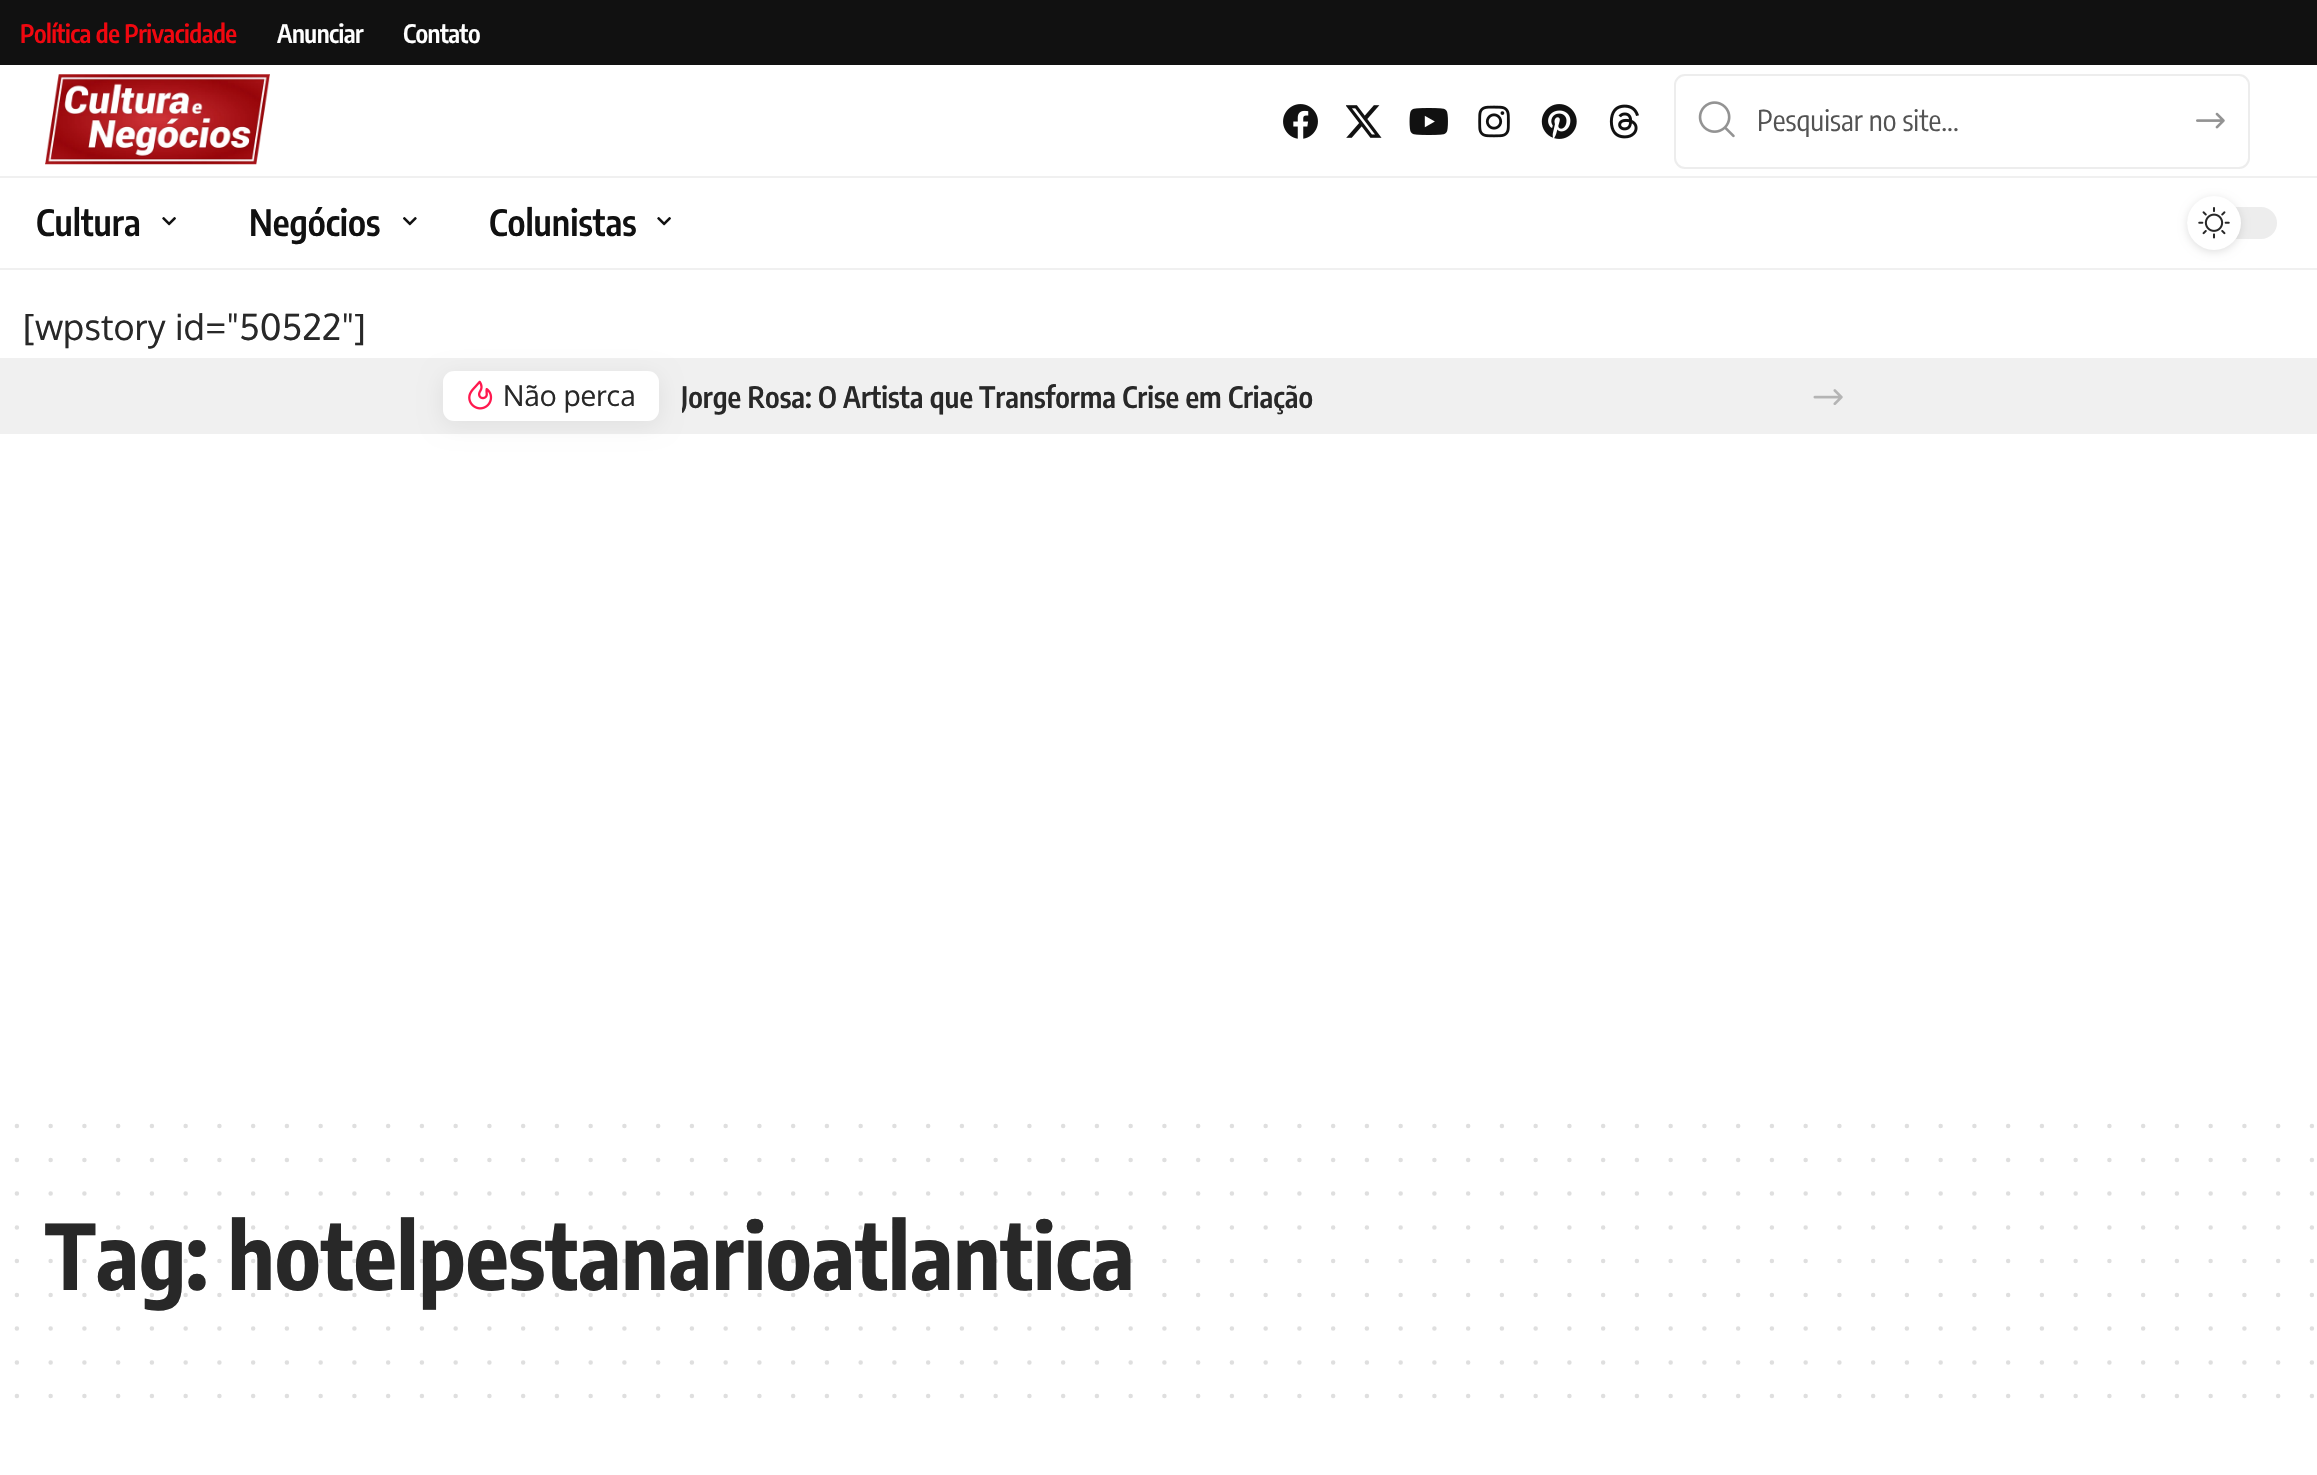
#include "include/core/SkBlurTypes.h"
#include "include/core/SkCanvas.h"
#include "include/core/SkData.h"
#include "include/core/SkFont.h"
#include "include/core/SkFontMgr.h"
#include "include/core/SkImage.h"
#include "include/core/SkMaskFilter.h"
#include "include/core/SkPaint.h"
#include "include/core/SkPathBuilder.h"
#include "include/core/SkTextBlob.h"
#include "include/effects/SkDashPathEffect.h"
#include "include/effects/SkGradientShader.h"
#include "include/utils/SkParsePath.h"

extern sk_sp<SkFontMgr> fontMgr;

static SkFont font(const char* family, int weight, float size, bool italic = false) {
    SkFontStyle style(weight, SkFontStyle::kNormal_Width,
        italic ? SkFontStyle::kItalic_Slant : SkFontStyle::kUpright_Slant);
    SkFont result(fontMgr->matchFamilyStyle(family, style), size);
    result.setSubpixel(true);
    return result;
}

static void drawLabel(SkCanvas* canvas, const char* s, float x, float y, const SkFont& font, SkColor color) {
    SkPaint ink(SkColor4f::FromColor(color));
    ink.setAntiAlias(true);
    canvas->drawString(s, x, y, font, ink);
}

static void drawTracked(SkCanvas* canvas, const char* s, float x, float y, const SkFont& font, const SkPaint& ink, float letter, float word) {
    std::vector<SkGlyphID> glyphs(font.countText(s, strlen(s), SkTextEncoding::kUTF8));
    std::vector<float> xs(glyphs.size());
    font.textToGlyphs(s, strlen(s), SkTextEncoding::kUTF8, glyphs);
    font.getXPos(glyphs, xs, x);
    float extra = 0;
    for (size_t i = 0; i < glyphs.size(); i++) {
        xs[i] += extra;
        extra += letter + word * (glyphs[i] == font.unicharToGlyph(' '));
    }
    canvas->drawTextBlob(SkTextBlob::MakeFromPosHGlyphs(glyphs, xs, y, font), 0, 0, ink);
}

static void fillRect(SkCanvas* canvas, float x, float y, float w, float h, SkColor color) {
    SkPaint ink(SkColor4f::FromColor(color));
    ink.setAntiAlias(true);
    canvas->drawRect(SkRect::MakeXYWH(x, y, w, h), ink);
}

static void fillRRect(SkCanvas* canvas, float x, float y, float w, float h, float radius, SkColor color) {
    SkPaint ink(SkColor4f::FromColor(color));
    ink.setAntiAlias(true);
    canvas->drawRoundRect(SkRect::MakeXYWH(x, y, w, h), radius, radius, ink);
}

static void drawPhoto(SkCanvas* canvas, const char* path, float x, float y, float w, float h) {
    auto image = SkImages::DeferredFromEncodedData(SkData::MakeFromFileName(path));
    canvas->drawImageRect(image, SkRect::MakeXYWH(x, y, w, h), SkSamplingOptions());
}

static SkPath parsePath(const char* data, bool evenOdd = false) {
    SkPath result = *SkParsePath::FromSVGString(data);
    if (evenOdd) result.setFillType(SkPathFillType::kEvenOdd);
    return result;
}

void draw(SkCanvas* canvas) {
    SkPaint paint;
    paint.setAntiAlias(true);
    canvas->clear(0xFFFFFFFF);
    fillRect(canvas, 0, 0, 2317, 65, 0xFF111111);
    SkFont font1 = font("Encode Sans Condensed", 600, 25.25f);
    paint.setColor(0xFFF1070F);
    drawTracked(canvas, "Política de Privacidade", 20, 43, font1, paint, -0.5f, 0);
    paint.setColor(0xFFFFFFFF);
    drawTracked(canvas, "Anunciar", 277, 43, font1, paint, -0.5f, 0);
    drawTracked(canvas, "Contato", 403, 43, font1, paint, -0.5f, 0);
    fillRect(canvas, 0, 176, 2317, 2, 0xFFF0F0F0);
    drawPhoto(canvas, "assets/img1.png", 45, 74, 225, 91);
    drawPhoto(canvas, "assets/img2.png", 1283, 104, 35, 35);
    drawPhoto(canvas, "assets/img3.png", 1346, 105, 36, 33);
    drawPhoto(canvas, "assets/img4.png", 1409, 108, 39, 27);
    drawPhoto(canvas, "assets/img5.png", 1478, 105, 32, 33);
    drawPhoto(canvas, "assets/img6.png", 1541, 104, 36, 35);
    drawPhoto(canvas, "assets/img7.png", 1609, 104, 30, 35);
    paint.setStroke(true);
    paint.setStrokeWidth(2);
    paint.setColor(0xFFEDEDED);
    canvas->drawRoundRect(SkRect::MakeXYWH(1675, 75, 574, 93), 10, 10, paint);
    drawPhoto(canvas, "assets/img8.png", 1698, 101, 37, 37);
    canvas->save();
    canvas->clipRect(SkRect::MakeXYWH(1757, 101, 394, 36));
    SkFont font2 = font("Encode Sans Condensed", 400, 28.75f);
    drawLabel(canvas, "Pesquisar no site...", 1757, 131, font2, 0xFF535353);
    canvas->restore();
    drawPhoto(canvas, "assets/img9.png", 2196, 112, 29, 17);
    fillRect(canvas, 0, 268, 2317, 2, 0xFFF0F0F0);
    SkFont font3 = font("Encode Sans Condensed", 600, 36);
    drawLabel(canvas, "Cultura", 36, 236, font3, 0xFF111111);
    drawPhoto(canvas, "assets/img10.png", 162, 217, 14, 9);
    drawLabel(canvas, "Negócios", 249, 236, font3, 0xFF111111);
    drawPhoto(canvas, "assets/img11.png", 403, 217, 14, 9);
    drawLabel(canvas, "Colunistas", 489, 236, font3, 0xFF111111);
    drawPhoto(canvas, "assets/img10.png", 657, 217, 14, 9);
    fillRRect(canvas, 2187, 207, 90, 32, 16, 0xFFEDEDED);
    paint.setStroke(false);
    paint.setColor(0x1F000000);
    paint.setMaskFilter(SkMaskFilter::MakeBlur(kNormal_SkBlurStyle, 4.5f));
    canvas->drawRoundRect(SkRect::MakeXYWH(2187, 198, 54, 54), 27, 27, paint);
    paint.setMaskFilter(nullptr);
    paint.setColor(0xFFFFFFFF);
    canvas->drawCircle(2214, 223, 27, paint);
    drawPhoto(canvas, "assets/img12.png", 2198, 207, 32, 32);
    SkFont font4 = font("Oxygen", 400, 36);
    drawLabel(canvas, "[wpstory id=\"50522\"]", 23, 340, font4, 0xFF282828);
    fillRect(canvas, 0, 358, 2317, 76, 0xFFF0F0F0);
    paint.setColor(0x12000000);
    paint.setMaskFilter(SkMaskFilter::MakeBlur(kNormal_SkBlurStyle, 11));
    canvas->drawRoundRect(SkRect::MakeXYWH(443, 376, 216, 49), 11, 11, paint);
    paint.setMaskFilter(nullptr);
    fillRRect(canvas, 443, 371, 216, 50, 11, 0xFFFFFFFF);
    drawPhoto(canvas, "assets/img13.png", 468, 380, 25, 30);
    SkFont font5 = font("Oxygen", 400, 28.75f);
    drawLabel(canvas, "Não perca", 503, 406, font5, 0xFF282828);
    canvas->save();
    canvas->clipRect(SkRect::MakeXYWH(682, 371, 632, 50));
    SkFont font6 = font("Encode Sans Condensed", 600, 29.25f);
    drawLabel(canvas, "Jorge Rosa: O Artista que Transforma Crise em Criação", 681, 408, font6, 0xFF282828);
    canvas->restore();
    drawPhoto(canvas, "assets/img14.png", 1813, 389, 30, 16);
    paint.setStroke(true);
    paint.setStrokeWidth(4.5f);
    paint.setStrokeCap(SkPaint::kRound_Cap);
    paint.setColor(0xFFDFDFDF);
    paint.setPathEffect(SkDashPathEffect::Make({{0, 33.75f}}, 0));
    canvas->drawPath(parsePath("M16.9 1126.1H2312.3"), paint);
    paint.setPathEffect(nullptr);
    paint.setPathEffect(SkDashPathEffect::Make({{0, 33.75f}}, 0));
    canvas->drawPath(parsePath("M16.9 1159.9H2312.3"), paint);
    paint.setPathEffect(nullptr);
    paint.setPathEffect(SkDashPathEffect::Make({{0, 33.75f}}, 0));
    canvas->drawPath(parsePath("M16.9 1193.6H2312.3"), paint);
    paint.setPathEffect(nullptr);
    SkFont font7 = font("Encode Sans Condensed", 700, 90);
    drawLabel(canvas, "Tag: hotelpestanarioatlantica", 45, 1290, font7, 0xFF282828);
    paint.setColor(0x26282828);
    paint.setPathEffect(SkDashPathEffect::Make({{0, 33.75f}}, 0));
    canvas->drawPath(parsePath("M16.9 1227.4H2312.3"), paint);
    paint.setPathEffect(nullptr);
    paint.setPathEffect(SkDashPathEffect::Make({{0, 33.75f}}, 0));
    canvas->drawPath(parsePath("M16.9 1261.1H2312.3"), paint);
    paint.setPathEffect(nullptr);
    paint.setPathEffect(SkDashPathEffect::Make({{0, 33.75f}}, 0));
    canvas->drawPath(parsePath("M16.9 1294.9H2312.3"), paint);
    paint.setPathEffect(nullptr);
    paint.setColor(0xFFDFDFDF);
    paint.setPathEffect(SkDashPathEffect::Make({{0, 33.75f}}, 0));
    canvas->drawPath(parsePath("M16.9 1328.6H2312.3"), paint);
    paint.setPathEffect(nullptr);
    paint.setPathEffect(SkDashPathEffect::Make({{0, 33.75f}}, 0));
    canvas->drawPath(parsePath("M16.9 1362.4H2312.3"), paint);
    paint.setPathEffect(nullptr);
    paint.setPathEffect(SkDashPathEffect::Make({{0, 33.75f}}, 0));
    canvas->drawPath(parsePath("M16.9 1396.1H2312.3"), paint);
    paint.setPathEffect(nullptr);
}
